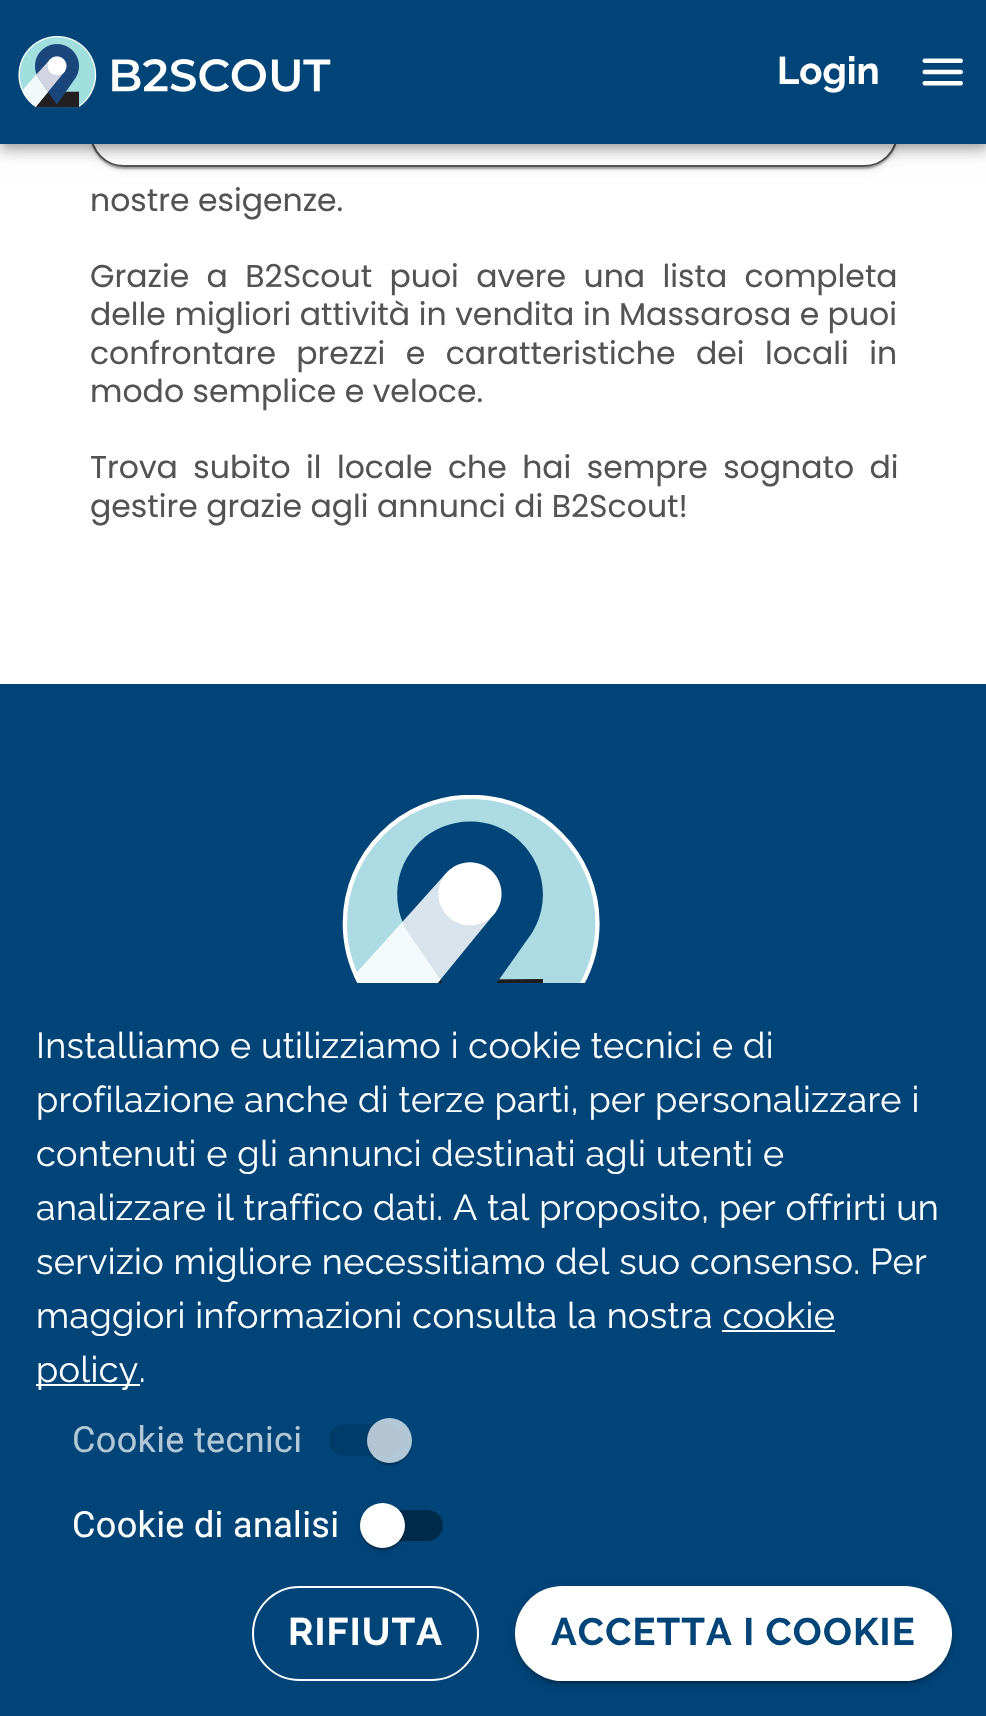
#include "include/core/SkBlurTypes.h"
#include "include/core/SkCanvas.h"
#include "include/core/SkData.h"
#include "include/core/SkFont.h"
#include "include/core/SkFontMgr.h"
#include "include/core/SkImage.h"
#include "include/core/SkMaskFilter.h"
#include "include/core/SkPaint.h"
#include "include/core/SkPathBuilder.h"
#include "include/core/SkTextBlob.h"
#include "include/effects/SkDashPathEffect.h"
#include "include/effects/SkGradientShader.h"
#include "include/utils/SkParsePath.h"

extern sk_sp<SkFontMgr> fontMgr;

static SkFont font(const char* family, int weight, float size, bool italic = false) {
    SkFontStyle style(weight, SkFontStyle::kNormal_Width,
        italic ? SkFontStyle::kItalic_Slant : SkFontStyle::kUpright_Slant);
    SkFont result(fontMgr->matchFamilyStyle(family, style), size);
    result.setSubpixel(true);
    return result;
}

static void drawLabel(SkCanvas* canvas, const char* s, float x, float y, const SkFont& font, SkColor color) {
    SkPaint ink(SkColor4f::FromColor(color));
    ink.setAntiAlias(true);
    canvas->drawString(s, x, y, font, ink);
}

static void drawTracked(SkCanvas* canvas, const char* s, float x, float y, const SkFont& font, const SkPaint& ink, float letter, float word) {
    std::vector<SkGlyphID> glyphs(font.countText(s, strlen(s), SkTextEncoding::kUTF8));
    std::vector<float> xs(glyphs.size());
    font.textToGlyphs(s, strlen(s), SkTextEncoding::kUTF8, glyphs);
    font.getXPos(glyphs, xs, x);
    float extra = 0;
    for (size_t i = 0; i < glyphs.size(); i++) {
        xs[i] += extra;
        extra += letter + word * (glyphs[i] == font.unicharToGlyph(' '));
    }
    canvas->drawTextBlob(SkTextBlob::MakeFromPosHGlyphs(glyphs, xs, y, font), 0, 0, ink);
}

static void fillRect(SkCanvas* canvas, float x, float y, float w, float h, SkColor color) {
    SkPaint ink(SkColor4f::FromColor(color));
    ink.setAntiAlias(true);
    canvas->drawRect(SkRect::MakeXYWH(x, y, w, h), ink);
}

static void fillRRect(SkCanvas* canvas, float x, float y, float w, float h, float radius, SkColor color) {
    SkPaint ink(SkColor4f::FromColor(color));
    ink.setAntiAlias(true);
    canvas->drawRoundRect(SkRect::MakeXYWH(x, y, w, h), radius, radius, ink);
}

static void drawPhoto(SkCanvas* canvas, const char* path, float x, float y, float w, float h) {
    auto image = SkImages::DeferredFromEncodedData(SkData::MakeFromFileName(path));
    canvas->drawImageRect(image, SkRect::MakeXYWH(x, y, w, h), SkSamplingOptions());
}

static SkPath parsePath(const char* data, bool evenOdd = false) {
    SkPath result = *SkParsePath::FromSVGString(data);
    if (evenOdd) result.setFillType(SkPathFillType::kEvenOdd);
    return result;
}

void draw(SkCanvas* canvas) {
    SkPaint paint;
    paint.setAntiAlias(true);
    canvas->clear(0xFFFFFFFF);
    paint.setColor(0x1F000000);
    paint.setMaskFilter(SkMaskFilter::MakeBlur(kNormal_SkBlurStyle, 3.5f));
    canvas->drawRoundRect(SkRect::MakeXYWH(90, 47, 808, 122), 34, 34, paint);
    paint.setMaskFilter(nullptr);
    paint.setColor(0x24000000);
    paint.setMaskFilter(SkMaskFilter::MakeBlur(kNormal_SkBlurStyle, 1));
    canvas->drawRoundRect(SkRect::MakeXYWH(90, 47, 808, 122), 34, 34, paint);
    paint.setMaskFilter(nullptr);
    paint.setColor(0x33000000);
    paint.setMaskFilter(SkMaskFilter::MakeBlur(kNormal_SkBlurStyle, 1));
    canvas->drawRoundRect(SkRect::MakeXYWH(92, 52, 804, 117), 32, 32, paint);
    paint.setMaskFilter(nullptr);
    paint.setColor(0xFFFFFFFF);
    canvas->drawRoundRect(SkRect::MakeXYWH(91, 46, 806, 120), 33, 33, paint);
    paint.setStroke(true);
    paint.setStrokeWidth(2);
    paint.setColor(0xFF545354);
    canvas->drawRoundRect(SkRect::MakeXYWH(91, 46, 806, 120), 33, 33, paint);
    paint.setStroke(false);
    paint.setColor(0x1F000000);
    paint.setMaskFilter(SkMaskFilter::MakeBlur(kNormal_SkBlurStyle, 11));
    canvas->drawRect(SkRect::MakeXYWH(0, 2, 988, 144), paint);
    paint.setMaskFilter(nullptr);
    paint.setColor(0x24000000);
    paint.setMaskFilter(SkMaskFilter::MakeBlur(kNormal_SkBlurStyle, 5.5f));
    canvas->drawRect(SkRect::MakeXYWH(0, 9, 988, 144), paint);
    paint.setMaskFilter(nullptr);
    paint.setColor(0x33000000);
    paint.setMaskFilter(SkMaskFilter::MakeBlur(kNormal_SkBlurStyle, 4.5f));
    canvas->drawRect(SkRect::MakeXYWH(2, 7, 984, 139), paint);
    paint.setMaskFilter(nullptr);
    fillRect(canvas, 0, 0, 986, 144, 0xFF004478);
    drawPhoto(canvas, "assets/img1.png", 18, 36, 313, 72);
    SkFont font1 = font("Raleway", 700, 38.25f);
    drawLabel(canvas, "Login", 777, 84, font1, 0xFFFFFFFF);
    drawPhoto(canvas, "assets/img2.png", 922, 58, 41, 28);
    SkFont font2 = font("Poppins", 400, 31.5f);
    drawLabel(canvas, "nostre esigenze.", 90, 211, font2, 0xFF545354);
    paint.setColor(0xFF545354);
    drawTracked(canvas, "Grazie a B2Scout puoi avere una lista completa", 90, 287, font2, paint, 0, 9);
    drawTracked(canvas, "delle migliori attività in vendita in", 90, 325, font2, paint, 0, 0.25f);
    drawLabel(canvas, "Massarosa e puoi", 619, 325, font2, 0xFF545354);
    drawTracked(canvas, "confrontare prezzi e caratteristiche dei locali in", 90, 364, font2, paint, 0, 12);
    drawLabel(canvas, "modo semplice e veloce.", 90, 402, font2, 0xFF545354);
    drawTracked(canvas, "Trova subito il locale che hai sempre sognato di", 90, 478, font2, paint, 0, 7);
    drawLabel(canvas, "gestire grazie agli annunci di B2Scout!", 90, 517, font2, 0xFF545354);
    fillRect(canvas, 0, 684, 986, 1032, 0xFF004478);
    drawPhoto(canvas, "assets/img3.png", 342, 795, 258, 188);
    SkFont font3 = font("Raleway", 400, 36);
    paint.setColor(0xFFFFFFFF);
    drawTracked(canvas, "Installiamo e utilizziamo i cookie tecnici e di", 36, 1058, font3, paint, 0.35f, 0);
    drawTracked(canvas, "profilazione anche di terze parti, per personalizzare i", 36, 1112, font3, paint, 0.35f, 0);
    drawTracked(canvas, "contenuti e gli annunci destinati agli utenti e", 36, 1166, font3, paint, 0.35f, 0);
    drawTracked(canvas, "analizzare il traffico dati. A tal proposito, per offrirti un", 36, 1220, font3, paint, 0.35f, 0);
    drawTracked(canvas, "servizio migliore necessitiamo del suo consenso. Per", 36, 1274, font3, paint, 0.35f, 0);
    drawTracked(canvas, "maggiori informazioni consulta la nostra cookie", 36, 1328, font3, paint, 0.35f, 0);
    fillRect(canvas, 36, 1384, 104, 2, 0xFFFFFFFF);
    drawTracked(canvas, "policy.", 36, 1382, font3, paint, 0.35f, 0);
    fillRect(canvas, 722, 1330, 113, 2, 0xFFFFFFFF);
    SkFont font4 = font("Roboto", 400, 36);
    paint.setColor(0xFFB3C7D7);
    drawTracked(canvas, "Cookie tecnici", 72, 1452, font4, paint, 0.35f, 0);
    fillRRect(canvas, 329, 1424, 76, 32, 16, 0xFF003C6A);
    canvas->save();
    canvas->clipPath(parsePath("M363 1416H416V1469H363ZM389.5 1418C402 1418 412 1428 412 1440.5C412 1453 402 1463 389.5 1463C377 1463 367 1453 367 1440.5C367 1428 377 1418 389.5 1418Z", true), true);
    paint.setColor(0x24000000);
    paint.setMaskFilter(SkMaskFilter::MakeBlur(kNormal_SkBlurStyle, 1));
    canvas->drawRoundRect(SkRect::MakeXYWH(367, 1420, 45, 45), 22.5f, 22.5f, paint);
    paint.setMaskFilter(nullptr);
    canvas->restore();
    canvas->save();
    canvas->clipPath(parsePath("M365 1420H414V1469H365ZM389.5 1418C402 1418 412 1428 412 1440.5C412 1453 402 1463 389.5 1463C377 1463 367 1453 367 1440.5C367 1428 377 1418 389.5 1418Z", true), true);
    paint.setColor(0x33000000);
    paint.setMaskFilter(SkMaskFilter::MakeBlur(kNormal_SkBlurStyle, 1));
    canvas->drawRoundRect(SkRect::MakeXYWH(369, 1424, 41, 41), 20.5f, 20.5f, paint);
    paint.setMaskFilter(nullptr);
    canvas->restore();
    paint.setColor(0xB3FFFFFF);
    canvas->drawCircle(389.5f, 1440.5f, 22.5f, paint);
    paint.setColor(0xFFFFFFFF);
    drawTracked(canvas, "Cookie di analisi", 72, 1537, font4, paint, 0.35f, 0);
    fillRRect(canvas, 367, 1510, 76, 31, 15.5f, 0xFF002A4A);
    paint.setColor(0x1F000000);
    paint.setMaskFilter(SkMaskFilter::MakeBlur(kNormal_SkBlurStyle, 3.5f));
    canvas->drawRoundRect(SkRect::MakeXYWH(360, 1505, 45, 45), 22.5f, 22.5f, paint);
    paint.setMaskFilter(nullptr);
    paint.setColor(0x24000000);
    paint.setMaskFilter(SkMaskFilter::MakeBlur(kNormal_SkBlurStyle, 1));
    canvas->drawRoundRect(SkRect::MakeXYWH(360, 1505, 45, 45), 22.5f, 22.5f, paint);
    paint.setMaskFilter(nullptr);
    paint.setColor(0x33000000);
    paint.setMaskFilter(SkMaskFilter::MakeBlur(kNormal_SkBlurStyle, 1));
    canvas->drawRoundRect(SkRect::MakeXYWH(362, 1510, 41, 40), 20, 20, paint);
    paint.setMaskFilter(nullptr);
    paint.setColor(0xFFFFFFFF);
    canvas->drawCircle(382.5f, 1525.5f, 22.5f, paint);
    paint.setStroke(true);
    canvas->drawRoundRect(SkRect::MakeXYWH(253, 1587, 225, 93), 46.5f, 46.5f, paint);
    paint.setStroke(false);
    drawTracked(canvas, "RIFIUTA", 288, 1645, font1, paint, 1.1f, 0);
    paint.setColor(0x1F000000);
    paint.setMaskFilter(SkMaskFilter::MakeBlur(kNormal_SkBlurStyle, 5.5f));
    canvas->drawRoundRect(SkRect::MakeXYWH(515, 1589, 437, 94), 47, 47, paint);
    paint.setMaskFilter(nullptr);
    paint.setColor(0x24000000);
    paint.setMaskFilter(SkMaskFilter::MakeBlur(kNormal_SkBlurStyle, 2));
    canvas->drawRoundRect(SkRect::MakeXYWH(515, 1591, 437, 94), 47, 47, paint);
    paint.setMaskFilter(nullptr);
    paint.setColor(0x33000000);
    paint.setMaskFilter(SkMaskFilter::MakeBlur(kNormal_SkBlurStyle, 1));
    canvas->drawRoundRect(SkRect::MakeXYWH(520, 1598, 427, 85), 42.5f, 42.5f, paint);
    paint.setMaskFilter(nullptr);
    fillRRect(canvas, 515, 1586, 437, 95, 47.5f, 0xFFFFFFFF);
    paint.setColor(0xFF004478);
    drawTracked(canvas, "ACCETTA I COOKIE", 551, 1645, font1, paint, 1.1f, 0);
}
